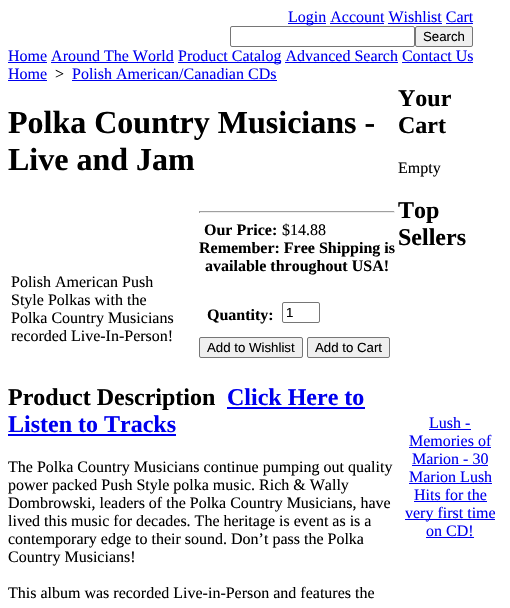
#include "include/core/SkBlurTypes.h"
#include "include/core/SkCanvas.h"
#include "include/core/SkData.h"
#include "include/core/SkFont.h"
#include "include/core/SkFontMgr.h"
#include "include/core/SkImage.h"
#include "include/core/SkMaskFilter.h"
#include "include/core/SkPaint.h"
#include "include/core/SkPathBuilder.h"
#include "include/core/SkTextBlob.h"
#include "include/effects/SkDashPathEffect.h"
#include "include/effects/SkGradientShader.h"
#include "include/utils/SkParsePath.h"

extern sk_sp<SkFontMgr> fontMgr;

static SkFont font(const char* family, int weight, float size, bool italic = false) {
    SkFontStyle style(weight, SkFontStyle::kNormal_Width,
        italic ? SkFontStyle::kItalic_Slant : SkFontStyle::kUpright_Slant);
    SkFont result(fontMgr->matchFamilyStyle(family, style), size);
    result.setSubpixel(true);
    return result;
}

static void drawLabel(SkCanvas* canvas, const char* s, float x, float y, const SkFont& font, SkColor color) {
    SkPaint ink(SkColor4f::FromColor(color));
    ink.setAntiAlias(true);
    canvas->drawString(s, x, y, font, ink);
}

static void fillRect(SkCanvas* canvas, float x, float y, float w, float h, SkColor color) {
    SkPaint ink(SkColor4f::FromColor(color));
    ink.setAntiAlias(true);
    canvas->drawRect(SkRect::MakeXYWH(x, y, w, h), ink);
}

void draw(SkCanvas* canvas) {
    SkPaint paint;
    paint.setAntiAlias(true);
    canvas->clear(0xFFFFFFFF);
    fillRect(canvas, 288, 23, 38, 1, 0xFF0000EE);
    SkFont font1 = font("Liberation Serif", 400, 16);
    drawLabel(canvas, "Login Account Wishlist Cart", 288, 22, font1, 0xFF0000EE);
    fillRect(canvas, 330, 23, 54, 1, 0xFF0000EE);
    fillRect(canvas, 388, 23, 54, 1, 0xFF0000EE);
    fillRect(canvas, 446, 23, 27, 1, 0xFF0000EE);
    paint.setStroke(true);
    paint.setStrokeWidth(1);
    paint.setColor(0xFF767676);
    canvas->drawRoundRect(SkRect::MakeXYWH(230.5f, 26.5f, 184, 20), 1.5f, 1.5f, paint);
    paint.setStroke(false);
    paint.setColor(0xFFEFEFEF);
    canvas->drawRoundRect(SkRect::MakeXYWH(415.5f, 26.5f, 57, 20), 1.5f, 1.5f, paint);
    paint.setStroke(true);
    paint.setColor(0xFF767676);
    canvas->drawRoundRect(SkRect::MakeXYWH(415.5f, 26.5f, 57, 20), 1.5f, 1.5f, paint);
    SkFont font2 = font("Liberation Sans", 400, 13.25f);
    drawLabel(canvas, "Search", 423, 41, font2, 0xFF000000);
    drawLabel(canvas, "Home Around The World", 8, 61, font1, 0xFF0000EE);
    fillRect(canvas, 8, 62, 39, 1, 0xFF0000EE);
    fillRect(canvas, 178, 62, 103, 1, 0xFF0000EE);
    drawLabel(canvas, "Product Catalog Advanced Search Contact Us", 178, 61, font1, 0xFF0000EE);
    fillRect(canvas, 51, 62, 123, 1, 0xFF0000EE);
    fillRect(canvas, 285, 62, 113, 1, 0xFF0000EE);
    fillRect(canvas, 402, 62, 71, 1, 0xFF0000EE);
    drawLabel(canvas, "Home", 8, 79, font1, 0xFF0000EE);
    fillRect(canvas, 8, 80, 39, 1, 0xFF0000EE);
    drawLabel(canvas, ">", 55, 79, font1, 0xFF000000);
    drawLabel(canvas, "Polish American/Canadian CDs", 72, 79, font1, 0xFF0000EE);
    fillRect(canvas, 72, 80, 205, 1, 0xFF0000EE);
    SkFont font3 = font("Liberation Serif", 700, 32);
    drawLabel(canvas, "Polka Country Musicians -", 8, 133, font3, 0xFF000000);
    drawLabel(canvas, "Live and Jam", 8, 170, font3, 0xFF000000);
    drawLabel(canvas, "Polish American Push", 11, 287, font1, 0xFF000000);
    drawLabel(canvas, "Style Polkas with the", 11, 305, font1, 0xFF000000);
    drawLabel(canvas, "Polka Country Musicians", 11, 323, font1, 0xFF000000);
    drawLabel(canvas, "recorded Live-In-Person!", 11, 341, font1, 0xFF000000);
    fillRect(canvas, 199, 211, 196, 1, 0xFF9F9F9F);
    fillRect(canvas, 394, 211, 1, 2, 0xFFEEEEEE);
    fillRect(canvas, 199, 212, 196, 1, 0xFFEEEEEE);
    fillRect(canvas, 199, 211, 1, 2, 0xFF9F9F9F);
    SkFont font4 = font("Liberation Serif", 700, 16);
    drawLabel(canvas, "Our Price:", 204, 235, font4, 0xFF000000);
    drawLabel(canvas, "$14.88", 282, 235, font1, 0xFF000000);
    drawLabel(canvas, "Remember: Free Shipping is", 199, 253, font4, 0xFF000000);
    drawLabel(canvas, "available throughout USA!", 205, 271, font4, 0xFF000000);
    drawLabel(canvas, "Quantity:", 207, 320, font4, 0xFF000000);
    canvas->drawRoundRect(SkRect::MakeXYWH(282.5f, 302.5f, 37, 20), 1.5f, 1.5f, paint);
    drawLabel(canvas, "1", 286, 317, font2, 0xFF000000);
    paint.setStroke(false);
    paint.setColor(0xFFEFEFEF);
    canvas->drawRoundRect(SkRect::MakeXYWH(199.5f, 337.5f, 103, 20), 1.5f, 1.5f, paint);
    paint.setStroke(true);
    paint.setColor(0xFF767676);
    canvas->drawRoundRect(SkRect::MakeXYWH(199.5f, 337.5f, 103, 20), 1.5f, 1.5f, paint);
    drawLabel(canvas, "Add to Wishlist", 207, 352, font2, 0xFF000000);
    paint.setStroke(false);
    paint.setColor(0xFFEFEFEF);
    canvas->drawRoundRect(SkRect::MakeXYWH(307.5f, 337.5f, 82, 20), 1.5f, 1.5f, paint);
    paint.setStroke(true);
    paint.setColor(0xFF767676);
    canvas->drawRoundRect(SkRect::MakeXYWH(307.5f, 337.5f, 82, 20), 1.5f, 1.5f, paint);
    drawLabel(canvas, "Add to Cart", 315, 352, font2, 0xFF000000);
    SkFont font5 = font("Liberation Serif", 700, 24);
    drawLabel(canvas, "Product Description", 8, 405, font5, 0xFF000000);
    drawLabel(canvas, "Click Here to", 227, 405, font5, 0xFF0000EE);
    fillRect(canvas, 227, 407, 138, 2, 0xFF0000EE);
    drawLabel(canvas, "Listen to Tracks", 8, 432, font5, 0xFF0000EE);
    fillRect(canvas, 8, 434, 168, 2, 0xFF0000EE);
    drawLabel(canvas, "The Polka Country Musicians continue pumping out quality", 8, 472, font1, 0xFF000000);
    drawLabel(canvas, "power packed Push Style polka music. Rich & Wally", 8, 490, font1, 0xFF000000);
    drawLabel(canvas, "Dombrowski, leaders of the Polka Country Musicians, have", 8, 508, font1, 0xFF000000);
    drawLabel(canvas, "lived this music for decades. The heritage is event as is a", 8, 526, font1, 0xFF000000);
    drawLabel(canvas, "contemporary edge to their sound. Don’t pass the Polka", 8, 544, font1, 0xFF000000);
    drawLabel(canvas, "Country Musicians!", 8, 562, font1, 0xFF000000);
    drawLabel(canvas, "This album was recorded Live-in-Person and features the", 8, 598, font1, 0xFF000000);
    drawLabel(canvas, "Your", 398, 106, font5, 0xFF000000);
    drawLabel(canvas, "Cart", 398, 133, font5, 0xFF000000);
    drawLabel(canvas, "Empty", 398, 173, font1, 0xFF000000);
    drawLabel(canvas, "Top", 398, 218, font5, 0xFF000000);
    drawLabel(canvas, "Sellers", 398, 245, font5, 0xFF000000);
    drawLabel(canvas, "Lush -", 429, 428, font1, 0xFF0000EE);
    fillRect(canvas, 429, 429, 42, 1, 0xFF0000EE);
    drawLabel(canvas, "Memories of", 409, 446, font1, 0xFF0000EE);
    fillRect(canvas, 409, 447, 82, 1, 0xFF0000EE);
    drawLabel(canvas, "Marion - 30", 412, 464, font1, 0xFF0000EE);
    fillRect(canvas, 412, 465, 76, 1, 0xFF0000EE);
    drawLabel(canvas, "Marion Lush", 409, 482, font1, 0xFF0000EE);
    fillRect(canvas, 409, 483, 83, 1, 0xFF0000EE);
    drawLabel(canvas, "Hits for the", 414, 500, font1, 0xFF0000EE);
    fillRect(canvas, 414, 501, 73, 1, 0xFF0000EE);
    fillRect(canvas, 405, 519, 90, 1, 0xFF0000EE);
    drawLabel(canvas, "very first time", 405, 518, font1, 0xFF0000EE);
    drawLabel(canvas, "on CD!", 426, 536, font1, 0xFF0000EE);
    fillRect(canvas, 426, 537, 48, 1, 0xFF0000EE);
}
